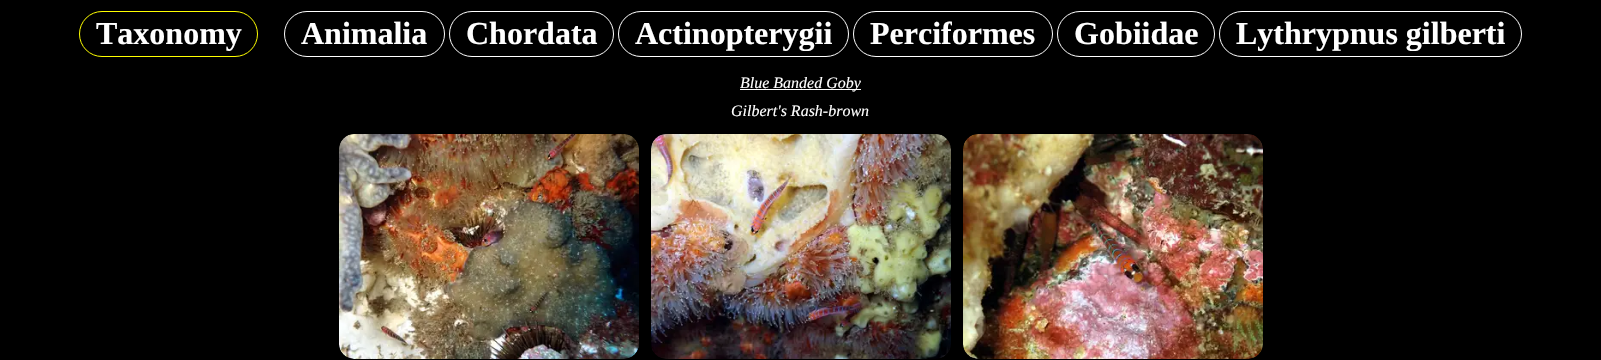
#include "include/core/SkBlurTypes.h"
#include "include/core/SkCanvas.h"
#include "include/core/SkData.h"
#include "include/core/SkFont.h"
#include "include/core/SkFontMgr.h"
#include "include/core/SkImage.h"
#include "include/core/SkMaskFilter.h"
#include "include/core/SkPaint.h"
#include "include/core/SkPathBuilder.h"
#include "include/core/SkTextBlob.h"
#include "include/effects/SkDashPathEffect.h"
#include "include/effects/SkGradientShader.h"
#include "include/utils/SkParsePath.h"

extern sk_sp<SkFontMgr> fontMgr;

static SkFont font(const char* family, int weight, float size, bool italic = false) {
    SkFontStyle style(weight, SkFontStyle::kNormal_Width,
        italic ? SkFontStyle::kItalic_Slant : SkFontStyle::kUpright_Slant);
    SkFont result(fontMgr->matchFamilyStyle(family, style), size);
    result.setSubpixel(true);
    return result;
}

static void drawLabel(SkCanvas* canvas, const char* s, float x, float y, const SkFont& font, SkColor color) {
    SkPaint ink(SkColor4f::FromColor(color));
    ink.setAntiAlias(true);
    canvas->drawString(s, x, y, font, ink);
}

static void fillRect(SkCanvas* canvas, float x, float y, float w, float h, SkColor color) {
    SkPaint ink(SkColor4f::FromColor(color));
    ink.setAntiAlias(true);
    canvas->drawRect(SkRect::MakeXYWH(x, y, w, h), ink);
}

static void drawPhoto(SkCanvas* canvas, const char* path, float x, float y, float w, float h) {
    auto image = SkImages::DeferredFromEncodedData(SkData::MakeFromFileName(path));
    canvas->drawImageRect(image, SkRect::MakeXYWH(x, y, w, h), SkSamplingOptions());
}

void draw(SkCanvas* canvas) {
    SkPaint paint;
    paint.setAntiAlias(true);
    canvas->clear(0xFF000000);
    paint.setStroke(true);
    paint.setStrokeWidth(1);
    paint.setColor(0xFFFFFF00);
    canvas->drawRoundRect(SkRect::MakeXYWH(79.5f, 11.5f, 178, 45), 22.5f, 22.5f, paint);
    SkFont font1 = font("Liberation Serif", 700, 32);
    drawLabel(canvas, "Taxonomy", 96, 44, font1, 0xFFFFFFFF);
    paint.setColor(0xFFFFFFFF);
    canvas->drawRoundRect(SkRect::MakeXYWH(284.5f, 11.5f, 160, 45), 22.5f, 22.5f, paint);
    drawLabel(canvas, "Animalia", 301, 44, font1, 0xFFFFFFFF);
    canvas->drawRoundRect(SkRect::MakeXYWH(449.5f, 11.5f, 164, 45), 22.5f, 22.5f, paint);
    drawLabel(canvas, "Chordata", 466, 44, font1, 0xFFFFFFFF);
    canvas->drawRoundRect(SkRect::MakeXYWH(618.5f, 11.5f, 230, 45), 22.5f, 22.5f, paint);
    drawLabel(canvas, "Actinopterygii", 635, 44, font1, 0xFFFFFFFF);
    canvas->drawRoundRect(SkRect::MakeXYWH(853.5f, 11.5f, 199, 45), 22.5f, 22.5f, paint);
    drawLabel(canvas, "Perciformes", 870, 44, font1, 0xFFFFFFFF);
    canvas->drawRoundRect(SkRect::MakeXYWH(1057.5f, 11.5f, 157, 45), 22.5f, 22.5f, paint);
    drawLabel(canvas, "Gobiidae", 1074, 44, font1, 0xFFFFFFFF);
    canvas->drawRoundRect(SkRect::MakeXYWH(1219.5f, 11.5f, 302, 45), 22.5f, 22.5f, paint);
    drawLabel(canvas, "Lythrypnus gilberti", 1236, 44, font1, 0xFFFFFFFF);
    fillRect(canvas, 740, 89, 121, 1, 0xFFFFFFFF);
    SkFont font2 = font("Liberation Serif", 400, 16, true);
    drawLabel(canvas, "Blue Banded Goby", 740, 88, font2, 0xFFFFFFFF);
    drawLabel(canvas, "Gilbert's Rash-brown", 731, 116, font2, 0xFFFFFFFF);
    drawPhoto(canvas, "assets/img1.png", 339, 134, 300, 225);
    drawPhoto(canvas, "assets/img2.png", 651, 134, 300, 225);
    drawPhoto(canvas, "assets/img3.png", 963, 134, 300, 225);
}
